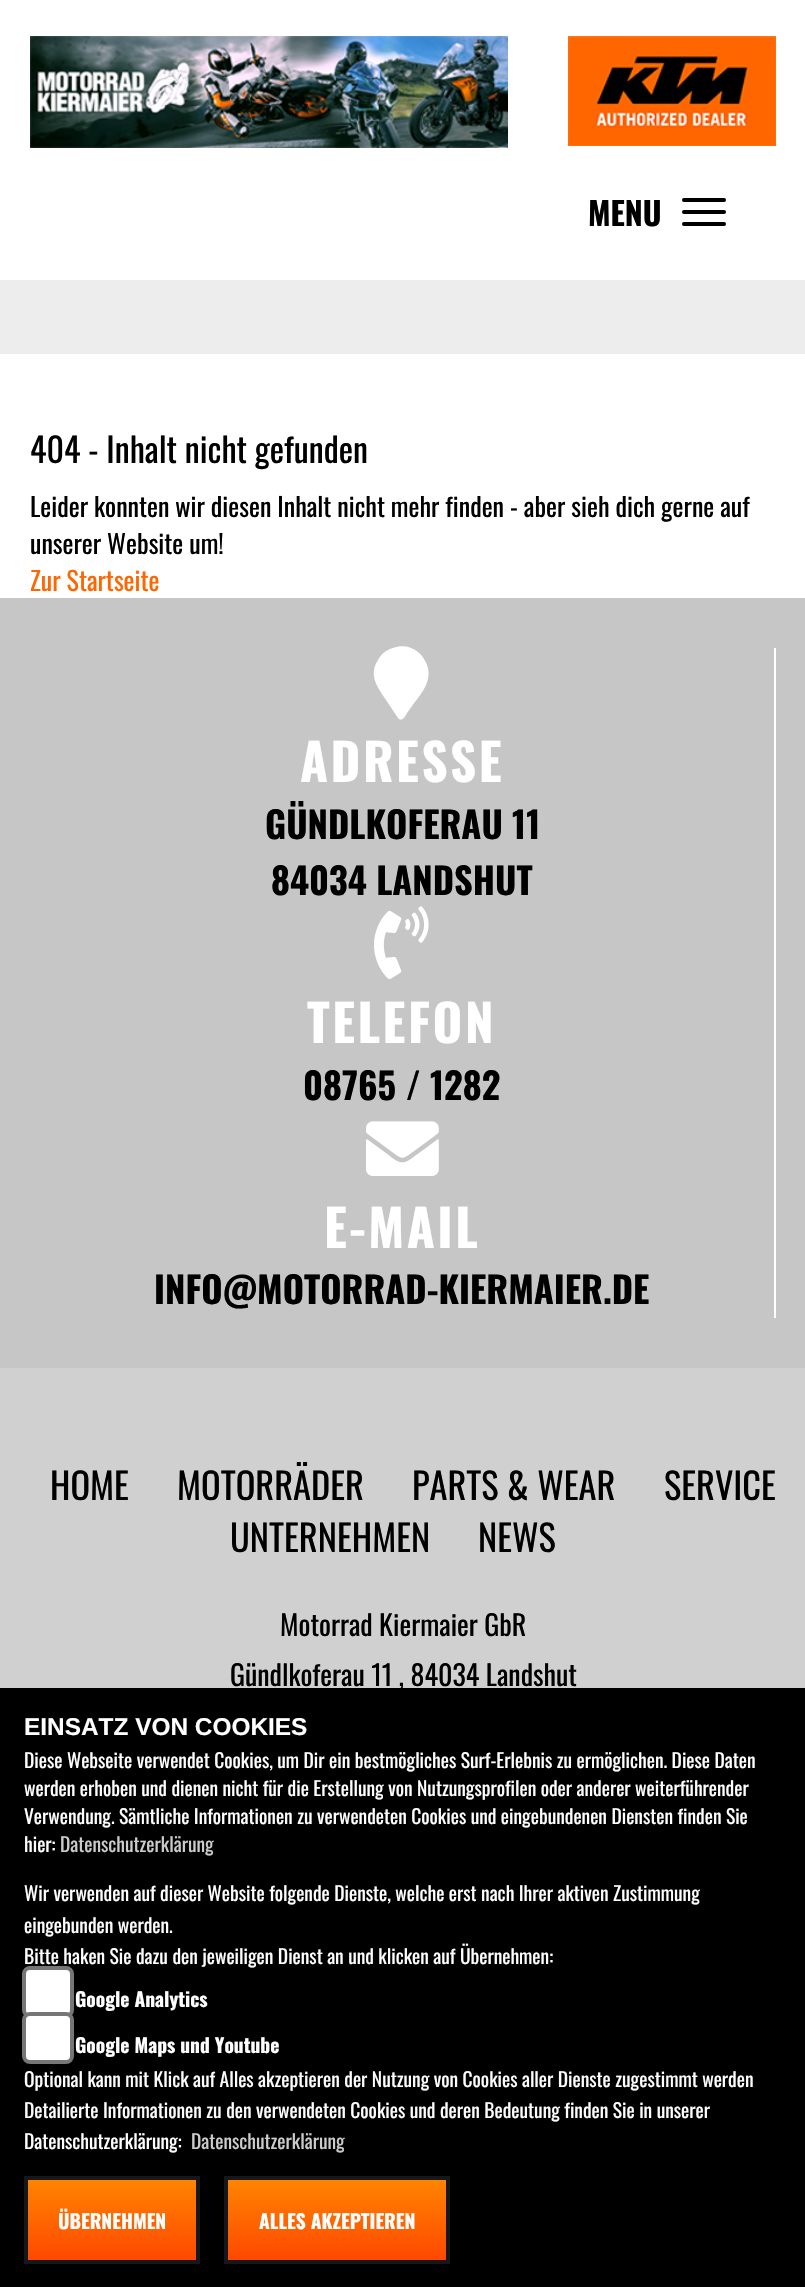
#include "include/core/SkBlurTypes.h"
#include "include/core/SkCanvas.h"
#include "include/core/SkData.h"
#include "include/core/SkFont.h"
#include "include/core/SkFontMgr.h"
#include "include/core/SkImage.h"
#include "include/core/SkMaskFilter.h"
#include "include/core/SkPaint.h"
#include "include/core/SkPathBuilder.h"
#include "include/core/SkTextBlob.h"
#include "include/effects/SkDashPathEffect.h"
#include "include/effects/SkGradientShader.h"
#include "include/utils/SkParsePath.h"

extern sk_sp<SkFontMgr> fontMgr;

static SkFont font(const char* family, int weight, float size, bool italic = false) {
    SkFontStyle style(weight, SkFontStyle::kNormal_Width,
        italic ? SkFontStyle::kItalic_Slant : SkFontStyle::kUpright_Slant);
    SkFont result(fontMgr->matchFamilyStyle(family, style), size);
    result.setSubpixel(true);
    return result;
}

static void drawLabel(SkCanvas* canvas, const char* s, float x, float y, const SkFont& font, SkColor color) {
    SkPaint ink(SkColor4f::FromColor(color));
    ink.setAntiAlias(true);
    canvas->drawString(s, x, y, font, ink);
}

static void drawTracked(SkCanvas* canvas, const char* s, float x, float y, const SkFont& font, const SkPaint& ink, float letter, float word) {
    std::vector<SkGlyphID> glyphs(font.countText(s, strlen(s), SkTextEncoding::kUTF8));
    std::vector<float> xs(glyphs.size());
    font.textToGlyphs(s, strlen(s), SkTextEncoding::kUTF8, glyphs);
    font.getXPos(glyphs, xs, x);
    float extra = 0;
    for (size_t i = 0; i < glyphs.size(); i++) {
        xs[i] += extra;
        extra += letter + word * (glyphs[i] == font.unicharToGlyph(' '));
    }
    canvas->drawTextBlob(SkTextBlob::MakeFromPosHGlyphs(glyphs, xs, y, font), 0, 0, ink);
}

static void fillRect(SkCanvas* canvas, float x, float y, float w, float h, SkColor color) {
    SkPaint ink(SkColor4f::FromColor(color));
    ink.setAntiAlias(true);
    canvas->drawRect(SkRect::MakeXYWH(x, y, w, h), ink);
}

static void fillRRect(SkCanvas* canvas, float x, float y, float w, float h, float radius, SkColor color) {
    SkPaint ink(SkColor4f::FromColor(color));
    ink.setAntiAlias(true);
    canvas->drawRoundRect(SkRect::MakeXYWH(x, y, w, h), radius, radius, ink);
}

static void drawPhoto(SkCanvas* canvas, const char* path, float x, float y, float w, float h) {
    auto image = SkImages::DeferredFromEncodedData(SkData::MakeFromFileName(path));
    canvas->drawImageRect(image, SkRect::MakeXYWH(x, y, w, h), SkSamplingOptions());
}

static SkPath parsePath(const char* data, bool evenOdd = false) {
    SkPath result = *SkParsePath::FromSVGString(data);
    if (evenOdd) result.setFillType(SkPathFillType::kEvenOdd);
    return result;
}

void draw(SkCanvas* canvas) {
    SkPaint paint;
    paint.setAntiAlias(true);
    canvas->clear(0xFFFFFFFF);
    drawPhoto(canvas, "assets/img1.png", 30, 36, 478, 112);
    drawPhoto(canvas, "assets/img2.png", 568, 36, 208, 110);
    SkFont font1 = font("Oswald", 700, 32);
    drawLabel(canvas, "MENU", 588, 226, font1, 0xFF000000);
    fillRRect(canvas, 682, 198, 44, 4, 2, 0xFF000000);
    fillRRect(canvas, 682, 210, 44, 4, 2, 0xFF000000);
    fillRRect(canvas, 682, 222, 44, 4, 2, 0xFF000000);
    fillRect(canvas, 0, 280, 805, 74, 0xFFEDEDED);
    SkFont font2 = font("Oswald", 400, 34);
    drawLabel(canvas, "404 - Inhalt nicht gefunden", 30, 463, font2, 0xFF000000);
    SkFont font3 = font("Oswald", 400, 26);
    drawLabel(canvas, "Leider konnten wir diesen Inhalt nicht mehr finden - aber sieh dich gerne auf", 30, 517, font3, 0xFF000000);
    drawLabel(canvas, "unserer Website um!", 30, 554, font3, 0xFF000000);
    drawLabel(canvas, "Zur Startseite", 30, 591, font3, 0xFFFF6600);
    fillRect(canvas, 0, 1368, 805, 320, 0xFFD0D0D0);
    fillRect(canvas, 0, 598, 805, 770, 0xFFC6C6C6);
    fillRect(canvas, 774, 648, 2, 670, 0xFFFFFFFF);
    paint.setColor(0xFFFFFFFF);
    canvas->drawPath(parsePath("M398 718L384 697C376 685 369 674 378 660C381 654 386 650 393 648C401 645 411 646 418 652C422 655 425 660 427 665C433 681 421 694 412 706L407 713C406 715 402 723 398 718Z"), paint);
    SkFont font4 = font("Oswald", 700, 51);
    drawTracked(canvas, "ADRESSE", 300, 782, font4, paint, 2.5f, 0);
    SkFont font5 = font("Oswald", 700, 36.4f);
    drawLabel(canvas, "GÜNDLKOFERAU 11", 265, 839, font5, 0xFF000000);
    drawLabel(canvas, "84034 LANDSHUT", 271, 895, font5, 0xFF000000);
    drawPhoto(canvas, "assets/img3.png", 374, 906, 55, 73);
    drawTracked(canvas, "TELEFON", 307, 1043, font4, paint, 2.5f, 0);
    drawLabel(canvas, "08765 / 1282", 303, 1100, font5, 0xFF000000);
    drawPhoto(canvas, "assets/img4.png", 366, 1121, 73, 55);
    drawTracked(canvas, "E-MAIL", 324, 1248, font4, paint, 2.5f, 0);
    drawLabel(canvas, "INFO@MOTORRAD-KIERMAIER.DE", 154, 1304, font5, 0xFF000000);
    SkFont font6 = font("Oswald", 400, 36.4f);
    drawLabel(canvas, "HOME", 50, 1500, font6, 0xFF000000);
    drawLabel(canvas, "MOTORRÄDER", 177, 1500, font6, 0xFF000000);
    drawLabel(canvas, "PARTS & WEAR", 412, 1500, font6, 0xFF000000);
    drawLabel(canvas, "SERVICE", 664, 1500, font6, 0xFF000000);
    drawLabel(canvas, "UNTERNEHMEN", 230, 1552, font6, 0xFF000000);
    drawLabel(canvas, "NEWS", 478, 1552, font6, 0xFF000000);
    SkFont font7 = font("Oswald", 400, 28);
    drawLabel(canvas, "Motorrad Kiermaier GbR", 280, 1636, font7, 0xFF000000);
    drawLabel(canvas, "Gündlkoferau 11 , 84034 Landshut", 230, 1686, font7, 0xFF000000);
    fillRect(canvas, 0, 1688, 805, 599, 0xFF000000);
    SkFont font8 = font("Liberation Sans", 700, 24.4f);
    drawLabel(canvas, "EINSATZ VON COOKIES", 24, 1735, font8, 0xFFFFFFFF);
    SkFont font9 = font("Oswald", 400, 19.5f);
    drawLabel(canvas, "Diese Webseite verwendet Cookies, um Dir ein bestmögliches Surf-Erlebnis zu ermöglichen. Diese Daten", 24, 1768, font9, 0xFFFFFFFF);
    drawLabel(canvas, "werden erhoben und dienen nicht für die Erstellung von Nutzungsprofilen oder anderer weiterführender", 24, 1796, font9, 0xFFFFFFFF);
    drawLabel(canvas, "Verwendung. Sämtliche Informationen zu verwendeten Cookies und eingebundenen Diensten finden Sie", 24, 1824, font9, 0xFFFFFFFF);
    drawLabel(canvas, "hier:", 24, 1852, font9, 0xFFFFFFFF);
    drawLabel(canvas, "Datenschutzerklärung", 60, 1852, font9, 0xFFCCCCCC);
    drawLabel(canvas, "Wir verwenden auf dieser Website folgende Dienste, welche erst nach Ihrer aktiven Zustimmung", 24, 1901, font9, 0xFFFFFFFF);
    drawLabel(canvas, "eingebunden werden.", 24, 1933, font9, 0xFFFFFFFF);
    drawLabel(canvas, "Bitte haken Sie dazu den jeweiligen Dienst an und klicken auf Übernehmen:", 24, 1964, font9, 0xFFFFFFFF);
    canvas->drawRoundRect(SkRect::MakeXYWH(24, 1968, 48, 48), 6, 6, paint);
    paint.setStroke(true);
    paint.setStrokeWidth(4);
    paint.setColor(0xFF767676);
    canvas->drawRoundRect(SkRect::MakeXYWH(24, 1968, 48, 48), 6, 6, paint);
    SkFont font10 = font("Oswald", 700, 19.5f);
    drawLabel(canvas, "Google Analytics", 75, 2007, font10, 0xFFFFFFFF);
    paint.setStroke(false);
    paint.setColor(0xFFFFFFFF);
    canvas->drawRoundRect(SkRect::MakeXYWH(24, 2014, 48, 48), 6, 6, paint);
    paint.setStroke(true);
    paint.setColor(0xFF767676);
    canvas->drawRoundRect(SkRect::MakeXYWH(24, 2014, 48, 48), 6, 6, paint);
    drawLabel(canvas, "Google Maps und Youtube", 75, 2053, font10, 0xFFFFFFFF);
    drawLabel(canvas, "Optional kann mit Klick auf Alles akzeptieren der Nutzung von Cookies aller Dienste zugestimmt werden", 24, 2087, font9, 0xFFFFFFFF);
    drawLabel(canvas, "Detailierte Informationen zu den verwendeten Cookies und deren Bedeutung finden Sie in unserer", 24, 2118, font9, 0xFFFFFFFF);
    drawLabel(canvas, "Datenschutzerklärung:", 24, 2149, font9, 0xFFFFFFFF);
    drawLabel(canvas, "Datenschutzerklärung", 191, 2149, font9, 0xFFCCCCCC);
    paint.setStroke(false);
    {
        const SkColor colors[] = {0xFFFF8400, 0xFFFF4900};
        const float stops[] = {0, 0.99f};
        const SkPoint ends[] = {{112, 2180}, {112, 2260}};
        paint.setShader(SkGradientShader::MakeLinear(ends, colors, stops, 2, SkTileMode::kClamp));
        paint.setAlpha(255);
    }
    canvas->drawRect(SkRect::MakeXYWH(28, 2180, 168, 80), paint);
    paint.setStroke(true);
    paint.setShader(nullptr);
    paint.setColor(0xFF16171A);
    canvas->drawRect(SkRect::MakeXYWH(26, 2178, 172, 84), paint);
    drawLabel(canvas, "ÜBERNEHMEN", 58, 2229, font10, 0xFFFFFFFF);
    paint.setStroke(false);
    {
        const SkColor colors[] = {0xFFFF8400, 0xFFFF4900};
        const float stops[] = {0, 0.99f};
        const SkPoint ends[] = {{337, 2180}, {337, 2260}};
        paint.setShader(SkGradientShader::MakeLinear(ends, colors, stops, 2, SkTileMode::kClamp));
        paint.setAlpha(255);
    }
    canvas->drawRect(SkRect::MakeXYWH(228, 2180, 218, 80), paint);
    paint.setStroke(true);
    paint.setShader(nullptr);
    paint.setColor(0xFF16171A);
    canvas->drawRect(SkRect::MakeXYWH(226, 2178, 222, 84), paint);
    drawLabel(canvas, "ALLES AKZEPTIEREN", 259, 2229, font10, 0xFFFFFFFF);
}
